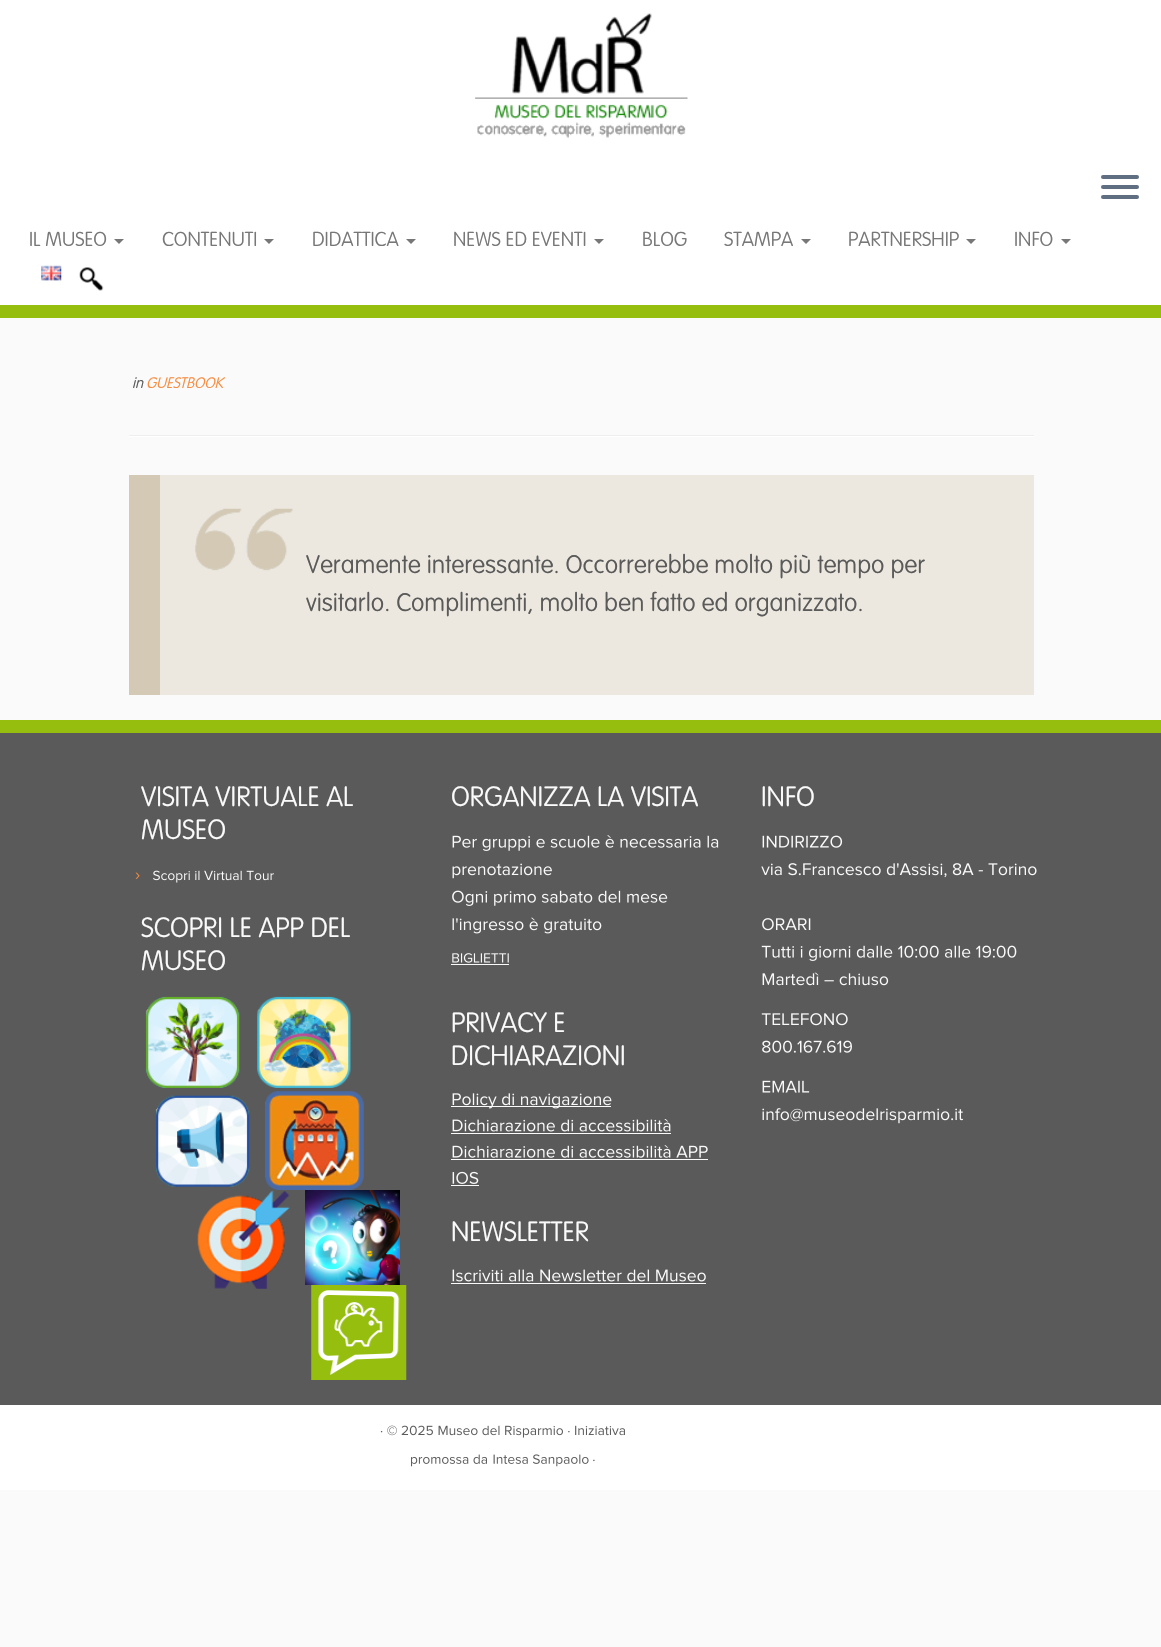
#include "include/core/SkBlurTypes.h"
#include "include/core/SkCanvas.h"
#include "include/core/SkData.h"
#include "include/core/SkFont.h"
#include "include/core/SkFontMgr.h"
#include "include/core/SkImage.h"
#include "include/core/SkMaskFilter.h"
#include "include/core/SkPaint.h"
#include "include/core/SkPathBuilder.h"
#include "include/core/SkTextBlob.h"
#include "include/effects/SkDashPathEffect.h"
#include "include/effects/SkGradientShader.h"
#include "include/utils/SkParsePath.h"

extern sk_sp<SkFontMgr> fontMgr;

static SkFont font(const char* family, int weight, float size, bool italic = false) {
    SkFontStyle style(weight, SkFontStyle::kNormal_Width,
        italic ? SkFontStyle::kItalic_Slant : SkFontStyle::kUpright_Slant);
    SkFont result(fontMgr->matchFamilyStyle(family, style), size);
    result.setSubpixel(true);
    return result;
}

static void drawLabel(SkCanvas* canvas, const char* s, float x, float y, const SkFont& font, SkColor color) {
    SkPaint ink(SkColor4f::FromColor(color));
    ink.setAntiAlias(true);
    canvas->drawString(s, x, y, font, ink);
}

static void fillRect(SkCanvas* canvas, float x, float y, float w, float h, SkColor color) {
    SkPaint ink(SkColor4f::FromColor(color));
    ink.setAntiAlias(true);
    canvas->drawRect(SkRect::MakeXYWH(x, y, w, h), ink);
}

static void fillRRect(SkCanvas* canvas, float x, float y, float w, float h, float radius, SkColor color) {
    SkPaint ink(SkColor4f::FromColor(color));
    ink.setAntiAlias(true);
    canvas->drawRoundRect(SkRect::MakeXYWH(x, y, w, h), radius, radius, ink);
}

static void drawPhoto(SkCanvas* canvas, const char* path, float x, float y, float w, float h) {
    auto image = SkImages::DeferredFromEncodedData(SkData::MakeFromFileName(path));
    canvas->drawImageRect(image, SkRect::MakeXYWH(x, y, w, h), SkSamplingOptions());
}

static SkPath parsePath(const char* data, bool evenOdd = false) {
    SkPath result = *SkParsePath::FromSVGString(data);
    if (evenOdd) result.setFillType(SkPathFillType::kEvenOdd);
    return result;
}

void draw(SkCanvas* canvas) {
    SkPaint paint;
    paint.setAntiAlias(true);
    canvas->clear(0xFFFAFAFA);
    fillRect(canvas, 0, 0, 1161, 305, 0xFFFFFFFF);
    fillRect(canvas, 0, 305, 1161, 13, 0xFF96BE0E);
    drawPhoto(canvas, "assets/img1.png", 475, 13, 213, 125);
    fillRRect(canvas, 1101, 175, 38, 4, 2, 0xFF5F6F81);
    fillRRect(canvas, 1101, 185, 38, 4, 2, 0xFF5F6F81);
    fillRRect(canvas, 1101, 195, 38, 4, 2, 0xFF5F6F81);
    SkFont font1 = font("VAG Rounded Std", 100, 20);
    drawLabel(canvas, "IL MUSEO", 29, 246, font1, 0xFF777777);
    paint.setColor(0xFF777777);
    canvas->drawPath(parsePath("M114 239H124L119 244Z"), paint);
    drawLabel(canvas, "CONTENUTI", 162, 246, font1, 0xFF777777);
    canvas->drawPath(parsePath("M264 239H274L269 244Z"), paint);
    drawLabel(canvas, "DIDATTICA", 312, 246, font1, 0xFF777777);
    canvas->drawPath(parsePath("M406 239H416L411 244Z"), paint);
    drawLabel(canvas, "NEWS ED EVENTI", 453, 246, font1, 0xFF777777);
    canvas->drawPath(parsePath("M594 239H604L599 244Z"), paint);
    drawLabel(canvas, "BLOG", 642, 246, font1, 0xFF777777);
    drawLabel(canvas, "STAMPA", 724, 246, font1, 0xFF777777);
    canvas->drawPath(parsePath("M801 239H811L806 244Z"), paint);
    drawLabel(canvas, "PARTNERSHIP", 848, 246, font1, 0xFF777777);
    canvas->drawPath(parsePath("M966 239H976L971 244Z"), paint);
    drawLabel(canvas, "INFO", 1014, 246, font1, 0xFF777777);
    canvas->drawPath(parsePath("M1061 239H1071L1066 244Z"), paint);
    drawPhoto(canvas, "assets/img2.png", 41, 265, 21, 16);
    drawPhoto(canvas, "assets/img3.png", 79, 267, 25, 24);
    SkFont font2 = font("VAG Rounded Std", 100, 15, true);
    drawLabel(canvas, "in", 132, 388, font2, 0xFF5A5A5A);
    drawLabel(canvas, "GUESTBOOK", 146, 388, font2, 0xFFF78C40);
    fillRect(canvas, 129, 435, 905, 1, 0xFFEEEEEE);
    fillRect(canvas, 129, 436, 905, 1, 0xFFFFFFFF);
    fillRect(canvas, 160, 475, 874, 220, 0xFFECE8DF);
    fillRect(canvas, 129, 475, 31, 220, 0xFFD3C9B4);
    drawPhoto(canvas, "assets/img4.png", 195, 508, 98, 63);
    SkFont font3 = font("VAG Rounded Std", 100, 25);
    drawLabel(canvas, "Veramente interessante. Occorrerebbe molto più tempo per", 306, 573, font3, 0xFF5A5A5A);
    drawLabel(canvas, "visitarlo. Complimenti, molto ben fatto ed organizzato.", 306, 611, font3, 0xFF5A5A5A);
    fillRect(canvas, 0, 733, 1161, 672, 0xFF5A5A5A);
    fillRect(canvas, 0, 720, 1161, 13, 0xFF96BE0E);
    SkFont font4 = font("VAG Rounded Std", 100, 27.5f);
    drawLabel(canvas, "VISITA VIRTUALE AL", 141, 806, font4, 0xFFFAFAFA);
    drawLabel(canvas, "MUSEO", 141, 839, font4, 0xFFFAFAFA);
    drawPhoto(canvas, "assets/img5.png", 135, 872, 5, 7);
    drawPhoto(canvas, "assets/img6.png", 153, 870, 121, 13);
    drawLabel(canvas, "SCOPRI LE APP DEL", 141, 937, font4, 0xFFFAFAFA);
    drawLabel(canvas, "MUSEO", 141, 970, font4, 0xFFFAFAFA);
    drawPhoto(canvas, "assets/img7.png", 145, 996, 95, 92);
    drawPhoto(canvas, "assets/img8.png", 257, 996, 94, 92);
    drawPhoto(canvas, "assets/img9.png", 155, 1095, 95, 92);
    drawPhoto(canvas, "assets/img10.png", 265, 1091, 99, 99);
    drawPhoto(canvas, "assets/img11.png", 197, 1190, 93, 99);
    drawPhoto(canvas, "assets/img12.png", 305, 1190, 95, 95);
    drawPhoto(canvas, "assets/img13.png", 311, 1285, 96, 95);
    drawLabel(canvas, "ORGANIZZA LA VISITA", 451, 806, font4, 0xFFFAFAFA);
    drawPhoto(canvas, "assets/img14.png", 452, 835, 267, 16);
    drawPhoto(canvas, "assets/img15.png", 452, 863, 100, 16);
    drawPhoto(canvas, "assets/img16.png", 452, 890, 216, 16);
    drawPhoto(canvas, "assets/img17.png", 452, 917, 150, 17);
    drawPhoto(canvas, "assets/img18.png", 452, 953, 57, 10);
    fillRect(canvas, 451, 964, 58, 1, 0xFFFAFAFA);
    drawLabel(canvas, "PRIVACY E", 451, 1032, font4, 0xFFFAFAFA);
    drawLabel(canvas, "DICHIARAZIONI", 451, 1065, font4, 0xFFFAFAFA);
    fillRect(canvas, 451, 1106, 160, 1, 0xFFFAFAFA);
    drawPhoto(canvas, "assets/img19.png", 452, 1093, 160, 16);
    drawPhoto(canvas, "assets/img20.png", 452, 1119, 219, 13);
    fillRect(canvas, 451, 1133, 220, 1, 0xFFFAFAFA);
    drawPhoto(canvas, "assets/img21.png", 452, 1145, 256, 13);
    fillRect(canvas, 451, 1159, 257, 1, 0xFFFAFAFA);
    drawPhoto(canvas, "assets/img22.png", 452, 1171, 27, 13);
    fillRect(canvas, 451, 1185, 28, 1, 0xFFFAFAFA);
    drawLabel(canvas, "NEWSLETTER", 451, 1241, font4, 0xFFFAFAFA);
    drawPhoto(canvas, "assets/img23.png", 452, 1269, 254, 13);
    fillRect(canvas, 451, 1283, 255, 1, 0xFFFAFAFA);
    drawLabel(canvas, "INFO", 761, 806, font4, 0xFFFAFAFA);
    drawPhoto(canvas, "assets/img24.png", 762, 835, 81, 13);
    drawPhoto(canvas, "assets/img25.png", 761, 863, 276, 15);
    drawPhoto(canvas, "assets/img26.png", 762, 918, 49, 13);
    drawPhoto(canvas, "assets/img27.png", 761, 945, 256, 16);
    drawPhoto(canvas, "assets/img28.png", 762, 972, 127, 14);
    drawPhoto(canvas, "assets/img29.png", 761, 1013, 87, 13);
    drawPhoto(canvas, "assets/img30.png", 762, 1040, 90, 13);
    drawPhoto(canvas, "assets/img31.png", 762, 1080, 48, 13);
    drawPhoto(canvas, "assets/img32.png", 762, 1108, 202, 16);
    fillRect(canvas, 0, 1405, 1161, 85, 0xFFFFFFFF);
    drawPhoto(canvas, "assets/img33.png", 380, 1425, 53, 11);
    drawPhoto(canvas, "assets/img34.png", 438, 1425, 125, 13);
    drawPhoto(canvas, "assets/img35.png", 568, 1425, 57, 11);
    drawPhoto(canvas, "assets/img36.png", 411, 1454, 76, 13);
    drawPhoto(canvas, "assets/img37.png", 493, 1454, 96, 13);
    drawPhoto(canvas, "assets/img38.png", 593, 1459, 2, 3);
}
